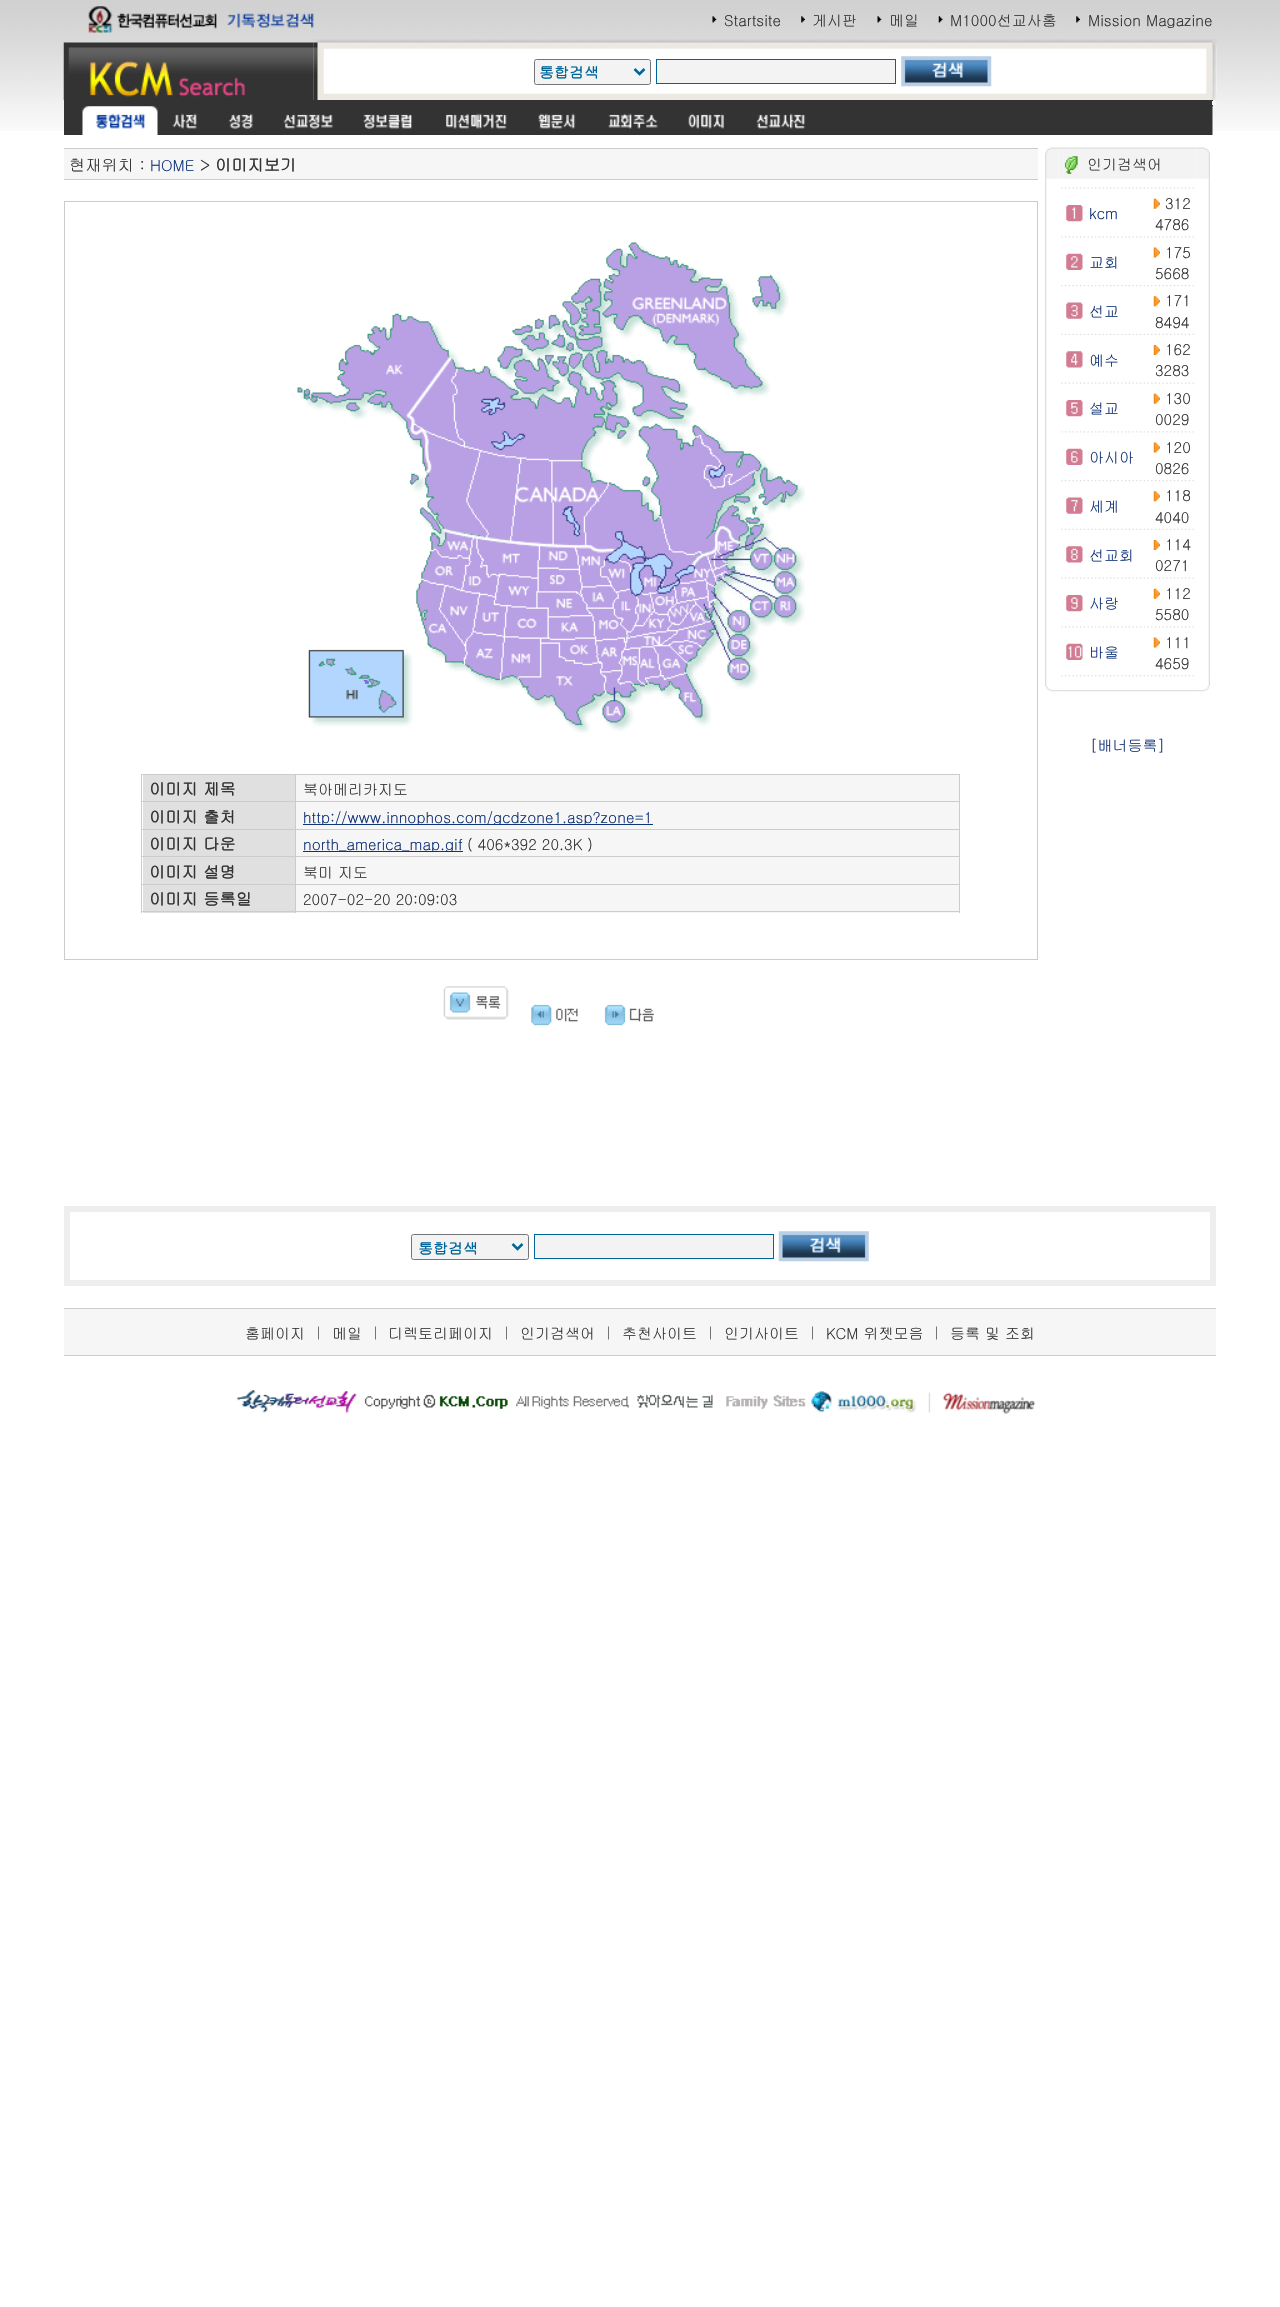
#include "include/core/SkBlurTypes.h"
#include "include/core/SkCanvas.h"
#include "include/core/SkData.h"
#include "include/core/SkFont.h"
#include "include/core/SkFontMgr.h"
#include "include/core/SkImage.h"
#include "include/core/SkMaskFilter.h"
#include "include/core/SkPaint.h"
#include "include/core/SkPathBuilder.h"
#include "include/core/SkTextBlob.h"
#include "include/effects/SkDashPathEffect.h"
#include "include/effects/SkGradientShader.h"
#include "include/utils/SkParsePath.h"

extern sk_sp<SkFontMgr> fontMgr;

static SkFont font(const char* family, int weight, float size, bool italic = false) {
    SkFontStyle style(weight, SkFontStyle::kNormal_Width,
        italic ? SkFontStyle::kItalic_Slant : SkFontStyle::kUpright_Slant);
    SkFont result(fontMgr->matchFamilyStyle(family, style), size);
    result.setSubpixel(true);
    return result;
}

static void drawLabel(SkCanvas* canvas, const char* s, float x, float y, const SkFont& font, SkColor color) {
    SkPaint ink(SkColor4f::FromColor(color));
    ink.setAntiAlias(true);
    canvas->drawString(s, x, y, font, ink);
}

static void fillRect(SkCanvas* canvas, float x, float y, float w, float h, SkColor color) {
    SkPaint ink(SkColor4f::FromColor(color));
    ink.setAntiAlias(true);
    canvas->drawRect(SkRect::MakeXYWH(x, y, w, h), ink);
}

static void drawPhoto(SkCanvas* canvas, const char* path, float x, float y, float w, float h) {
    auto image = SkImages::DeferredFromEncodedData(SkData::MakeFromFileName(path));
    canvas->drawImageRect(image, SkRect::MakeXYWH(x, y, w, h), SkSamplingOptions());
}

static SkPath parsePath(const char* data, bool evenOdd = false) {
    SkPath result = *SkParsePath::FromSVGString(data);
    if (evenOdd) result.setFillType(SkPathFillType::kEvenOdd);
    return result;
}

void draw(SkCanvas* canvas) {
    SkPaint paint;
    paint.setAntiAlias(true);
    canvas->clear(0xFFFFFFFF);
    drawPhoto(canvas, "assets/img1.png", 0, 0, 1280, 131);
    drawPhoto(canvas, "assets/img2.png", 88, 6, 226, 27);
    drawPhoto(canvas, "assets/img3.png", 712, 16, 5, 7);
    SkFont font1 = font("Gulim", 400, 15);
    drawLabel(canvas, "Startsite", 724, 26, font1, 0xFF333333);
    drawPhoto(canvas, "assets/img4.png", 801, 16, 4, 7);
    drawLabel(canvas, "게시판", 812, 26, font1, 0xFF333333);
    drawPhoto(canvas, "assets/img5.png", 877, 16, 5, 7);
    drawLabel(canvas, "메일", 889, 26, font1, 0xFF333333);
    drawPhoto(canvas, "assets/img6.png", 938, 16, 5, 7);
    drawLabel(canvas, "M1000선교사홈", 950, 26, font1, 0xFF333333);
    drawPhoto(canvas, "assets/img7.png", 1076, 16, 4, 7);
    drawLabel(canvas, "Mission Magazine", 1088, 26, font1, 0xFF333333);
    drawPhoto(canvas, "assets/img9.png", 313, 39, 904, 61);
    drawPhoto(canvas, "assets/img8.png", 63, 42, 251, 58);
    drawPhoto(canvas, "assets/img10.png", 313, 40, 11, 60);
    paint.setColor(0xFFF3F3F3);
    canvas->drawRoundRect(SkRect::MakeXYWH(534.5f, 59.5f, 116, 25), 2, 2, paint);
    paint.setStroke(true);
    paint.setStrokeWidth(1);
    paint.setColor(0xFF767676);
    canvas->drawRoundRect(SkRect::MakeXYWH(534.5f, 59.5f, 116, 25), 2, 2, paint);
    paint.setStrokeWidth(2.5f);
    paint.setColor(0xFF006699);
    canvas->drawPath(parsePath("M634.5 69L639.5 74L644.5 69"), paint);
    SkFont font2 = font("Gulim", 700, 15);
    drawLabel(canvas, "통합검색", 539, 78, font2, 0xFF006699);
    paint.setStroke(false);
    paint.setColor(0xFFF3F3F3);
    canvas->drawRect(SkRect::MakeXYWH(656.5f, 59.5f, 239, 24), paint);
    paint.setStroke(true);
    paint.setStrokeWidth(1);
    paint.setColor(0xFF006699);
    canvas->drawRect(SkRect::MakeXYWH(656.5f, 59.5f, 239, 24), paint);
    drawPhoto(canvas, "assets/img11.png", 901, 56, 91, 31);
    drawPhoto(canvas, "assets/img12.png", 1206, 41, 7, 53);
    drawPhoto(canvas, "assets/img13.png", 1212, 40, 4, 60);
    fillRect(canvas, 64, 100, 1149, 35, 0xFF333333);
    fillRect(canvas, 1212, 101, 4, 4, 0xFFF7F7F7);
    drawPhoto(canvas, "assets/img14.png", 82, 106, 76, 29);
    drawPhoto(canvas, "assets/img15.png", 172, 113, 25, 16);
    drawPhoto(canvas, "assets/img16.png", 228, 113, 25, 16);
    drawPhoto(canvas, "assets/img17.png", 283, 114, 50, 15);
    drawPhoto(canvas, "assets/img18.png", 363, 114, 49, 15);
    drawPhoto(canvas, "assets/img19.png", 446, 113, 61, 16);
    drawPhoto(canvas, "assets/img20.png", 538, 113, 38, 16);
    drawPhoto(canvas, "assets/img21.png", 608, 113, 50, 16);
    drawPhoto(canvas, "assets/img22.png", 688, 113, 36, 16);
    drawPhoto(canvas, "assets/img23.png", 756, 113, 50, 16);
    drawPhoto(canvas, "assets/img24.png", 1212, 106, 1, 29);
    fillRect(canvas, 64, 148, 974, 1, 0xFFCCCCCC);
    fillRect(canvas, 64, 149, 974, 30, 0xFFF6F6F6);
    SkFont font3 = font("Gulim", 400, 16.25f);
    drawLabel(canvas, "현재위치 :", 69, 171, font3, 0xFF333333);
    drawLabel(canvas, "HOME", 150, 171, font1, 0xFF113377);
    drawLabel(canvas, ">", 200, 171, font3, 0xFF333333);
    SkFont font4 = font("Gulim", 700, 16.25f);
    drawLabel(canvas, "이미지보기", 215, 171, font4, 0xFF333333);
    fillRect(canvas, 64, 179, 974, 1, 0xFFCCCCCC);
    paint.setColor(0xFFCCCCCC);
    canvas->drawRect(SkRect::MakeXYWH(64.5f, 201.5f, 973, 758), paint);
    drawPhoto(canvas, "assets/img25.png", 297, 242, 508, 491);
    fillRect(canvas, 141, 774, 819, 1, 0xFFCCCCCC);
    fillRect(canvas, 959, 774, 1, 139, 0xFFCCCCCC);
    fillRect(canvas, 143, 885, 152, 28, 0xFFE0E0E0);
    fillRect(canvas, 296, 885, 663, 28, 0xFFF6F6F6);
    fillRect(canvas, 141, 911, 819, 1, 0xFFCCCCCC);
    fillRect(canvas, 141, 774, 1, 139, 0xFFCCCCCC);
    fillRect(canvas, 143, 775, 152, 54, 0xFFE0E0E0);
    drawLabel(canvas, "이미지 제목", 149, 795, font4, 0xFF333333);
    fillRect(canvas, 296, 775, 663, 54, 0xFFF6F6F6);
    fillRect(canvas, 295, 801, 665, 1, 0xFFCCCCCC);
    fillRect(canvas, 295, 829, 665, 1, 0xFFCCCCCC);
    fillRect(canvas, 143, 830, 152, 54, 0xFFE0E0E0);
    fillRect(canvas, 296, 830, 663, 54, 0xFFF6F6F6);
    fillRect(canvas, 295, 856, 665, 1, 0xFFCCCCCC);
    fillRect(canvas, 295, 884, 665, 1, 0xFFCCCCCC);
    fillRect(canvas, 295, 884, 1, 29, 0xFFCCCCCC);
    fillRect(canvas, 141, 884, 155, 1, 0xFFCCCCCC);
    fillRect(canvas, 295, 856, 1, 29, 0xFFCCCCCC);
    fillRect(canvas, 141, 856, 155, 1, 0xFFCCCCCC);
    fillRect(canvas, 295, 829, 1, 29, 0xFFCCCCCC);
    fillRect(canvas, 141, 829, 155, 1, 0xFFCCCCCC);
    fillRect(canvas, 295, 801, 1, 29, 0xFFCCCCCC);
    fillRect(canvas, 141, 801, 155, 1, 0xFFCCCCCC);
    fillRect(canvas, 295, 774, 1, 29, 0xFFCCCCCC);
    drawLabel(canvas, "북아메리카지도", 303, 795, font1, 0xFF333333);
    drawLabel(canvas, "이미지 출처", 149, 823, font4, 0xFF333333);
    fillRect(canvas, 303, 824, 350, 1, 0xFF113377);
    drawLabel(canvas, "http://www.innophos.com/gcdzone1.asp?zone=1", 303, 823, font1, 0xFF113377);
    drawLabel(canvas, "이미지 다운", 149, 850, font4, 0xFF333333);
    fillRect(canvas, 303, 851, 160, 1, 0xFF113377);
    drawLabel(canvas, "north_america_map.gif", 303, 850, font1, 0xFF113377);
    drawLabel(canvas, "( 406*392 20.3K )", 467, 850, font1, 0xFF333333);
    drawLabel(canvas, "이미지 설명", 149, 878, font4, 0xFF333333);
    drawLabel(canvas, "북미 지도", 303, 878, font1, 0xFF333333);
    drawLabel(canvas, "이미지 등록일", 149, 905, font4, 0xFF333333);
    drawLabel(canvas, "2007-02-20 20:09:03", 303, 905, font1, 0xFF333333);
    drawPhoto(canvas, "assets/img26.png", 443, 986, 66, 34);
    drawPhoto(canvas, "assets/img27.png", 531, 1004, 47, 22);
    drawPhoto(canvas, "assets/img28.png", 604, 1004, 50, 22);
    drawPhoto(canvas, "assets/img30.png", 1058, 147, 139, 32);
    drawPhoto(canvas, "assets/img33.png", 1045, 178, 2, 501);
    drawPhoto(canvas, "assets/img29.png", 1045, 147, 14, 32);
    drawPhoto(canvas, "assets/img31.png", 1064, 156, 14, 18);
    drawLabel(canvas, "인기검색어", 1087, 170, font1, 0xFF333333);
    drawPhoto(canvas, "assets/img53.png", 1208, 178, 2, 501);
    drawPhoto(canvas, "assets/img32.png", 1196, 147, 14, 32);
    drawPhoto(canvas, "assets/img34.png", 1061, 187, 133, 2);
    drawPhoto(canvas, "assets/img35.png", 1066, 205, 17, 17);
    drawLabel(canvas, "kcm", 1089, 219, font1, 0xFF113377);
    drawPhoto(canvas, "assets/img36.png", 1153, 198, 7, 11);
    drawLabel(canvas, "312", 1165, 209, font1, 0xFF333333);
    drawLabel(canvas, "4786", 1155, 230, font1, 0xFF333333);
    drawPhoto(canvas, "assets/img37.png", 1061, 236, 133, 2);
    drawPhoto(canvas, "assets/img38.png", 1066, 253, 17, 17);
    drawLabel(canvas, "교회", 1089, 268, font1, 0xFF113377);
    drawPhoto(canvas, "assets/img39.png", 1153, 247, 7, 11);
    drawLabel(canvas, "175", 1165, 258, font1, 0xFF333333);
    drawLabel(canvas, "5668", 1155, 279, font1, 0xFF333333);
    drawPhoto(canvas, "assets/img40.png", 1061, 285, 133, 2);
    drawPhoto(canvas, "assets/img41.png", 1066, 302, 17, 17);
    drawLabel(canvas, "선교", 1089, 317, font1, 0xFF113377);
    drawPhoto(canvas, "assets/img42.png", 1153, 296, 7, 11);
    drawLabel(canvas, "171", 1165, 306, font1, 0xFF333333);
    drawLabel(canvas, "8494", 1155, 328, font1, 0xFF333333);
    drawPhoto(canvas, "assets/img43.png", 1061, 333, 133, 2);
    drawPhoto(canvas, "assets/img44.png", 1066, 351, 17, 17);
    drawLabel(canvas, "예수", 1089, 366, font1, 0xFF113377);
    drawPhoto(canvas, "assets/img45.png", 1153, 345, 7, 10);
    drawLabel(canvas, "162", 1165, 355, font1, 0xFF333333);
    drawLabel(canvas, "3283", 1155, 376, font1, 0xFF333333);
    drawPhoto(canvas, "assets/img34.png", 1061, 382, 133, 2);
    drawPhoto(canvas, "assets/img46.png", 1066, 400, 17, 17);
    drawLabel(canvas, "설교", 1089, 414, font1, 0xFF113377);
    drawPhoto(canvas, "assets/img36.png", 1153, 393, 7, 11);
    drawLabel(canvas, "130", 1165, 404, font1, 0xFF333333);
    drawLabel(canvas, "0029", 1155, 425, font1, 0xFF333333);
    drawPhoto(canvas, "assets/img37.png", 1061, 431, 133, 2);
    drawPhoto(canvas, "assets/img47.png", 1066, 448, 17, 17);
    drawLabel(canvas, "아시아", 1089, 463, font1, 0xFF113377);
    drawPhoto(canvas, "assets/img39.png", 1153, 442, 7, 11);
    drawLabel(canvas, "120", 1165, 453, font1, 0xFF333333);
    drawLabel(canvas, "0826", 1155, 474, font1, 0xFF333333);
    drawPhoto(canvas, "assets/img48.png", 1061, 480, 133, 2);
    drawPhoto(canvas, "assets/img49.png", 1066, 497, 17, 17);
    drawLabel(canvas, "세계", 1089, 512, font1, 0xFF113377);
    drawPhoto(canvas, "assets/img42.png", 1153, 491, 7, 11);
    drawLabel(canvas, "118", 1165, 501, font1, 0xFF333333);
    drawLabel(canvas, "4040", 1155, 523, font1, 0xFF333333);
    drawPhoto(canvas, "assets/img43.png", 1061, 528, 133, 2);
    drawPhoto(canvas, "assets/img50.png", 1066, 546, 17, 17);
    drawLabel(canvas, "선교회", 1089, 561, font1, 0xFF113377);
    drawPhoto(canvas, "assets/img45.png", 1153, 540, 7, 10);
    drawLabel(canvas, "114", 1165, 550, font1, 0xFF333333);
    drawLabel(canvas, "0271", 1155, 571, font1, 0xFF333333);
    drawPhoto(canvas, "assets/img34.png", 1061, 577, 133, 2);
    drawPhoto(canvas, "assets/img51.png", 1066, 595, 17, 17);
    drawLabel(canvas, "사랑", 1089, 609, font1, 0xFF113377);
    drawPhoto(canvas, "assets/img36.png", 1153, 588, 7, 11);
    drawLabel(canvas, "112", 1165, 599, font1, 0xFF333333);
    drawLabel(canvas, "5580", 1155, 620, font1, 0xFF333333);
    drawPhoto(canvas, "assets/img37.png", 1061, 626, 133, 2);
    drawPhoto(canvas, "assets/img52.png", 1066, 643, 17, 17);
    drawLabel(canvas, "바울", 1089, 658, font1, 0xFF113377);
    drawPhoto(canvas, "assets/img39.png", 1153, 637, 7, 11);
    drawLabel(canvas, "111", 1165, 648, font1, 0xFF333333);
    drawLabel(canvas, "4659", 1155, 669, font1, 0xFF333333);
    drawPhoto(canvas, "assets/img40.png", 1061, 675, 133, 2);
    drawPhoto(canvas, "assets/img55.png", 1058, 690, 139, 2);
    drawPhoto(canvas, "assets/img54.png", 1045, 679, 14, 13);
    drawPhoto(canvas, "assets/img56.png", 1196, 679, 14, 13);
    drawLabel(canvas, "[배너등록]", 1090, 751, font1, 0xFF113377);
    paint.setStrokeWidth(6);
    paint.setColor(0xFFEEEEEE);
    canvas->drawRect(SkRect::MakeXYWH(67, 1209, 1146, 74), paint);
    paint.setStroke(false);
    paint.setColor(0xFFF3F3F3);
    canvas->drawRoundRect(SkRect::MakeXYWH(411.5f, 1234.5f, 117, 25), 2, 2, paint);
    paint.setStroke(true);
    paint.setStrokeWidth(1);
    paint.setColor(0xFF767676);
    canvas->drawRoundRect(SkRect::MakeXYWH(411.5f, 1234.5f, 117, 25), 2, 2, paint);
    paint.setStrokeWidth(2.5f);
    paint.setColor(0xFF006699);
    canvas->drawPath(parsePath("M512.5 1244L517.5 1249L522.5 1244"), paint);
    drawLabel(canvas, "통합검색", 418, 1254, font2, 0xFF006699);
    paint.setStroke(false);
    paint.setColor(0xFFF3F3F3);
    canvas->drawRect(SkRect::MakeXYWH(534.5f, 1234.5f, 239, 24), paint);
    paint.setStroke(true);
    paint.setStrokeWidth(1);
    paint.setColor(0xFF006699);
    canvas->drawRect(SkRect::MakeXYWH(534.5f, 1234.5f, 239, 24), paint);
    drawPhoto(canvas, "assets/img57.png", 778, 1231, 91, 31);
    fillRect(canvas, 64, 1309, 1152, 46, 0xFFF6F6F6);
    fillRect(canvas, 64, 1308, 1152, 1, 0xFFCCCCCC);
    fillRect(canvas, 64, 1355, 1152, 1, 0xFFCCCCCC);
    drawLabel(canvas, "홈페이지", 245, 1339, font1, 0xFF333333);
    SkFont font5 = font("Gulim", 400, 14);
    drawLabel(canvas, "|", 315, 1338, font5, 0xFF666666);
    drawLabel(canvas, "메일", 332, 1339, font1, 0xFF333333);
    drawLabel(canvas, "|", 372, 1338, font5, 0xFF666666);
    drawLabel(canvas, "디렉토리페이지", 388, 1339, font1, 0xFF333333);
    drawLabel(canvas, "|", 503, 1338, font5, 0xFF666666);
    drawLabel(canvas, "인기검색어", 520, 1339, font1, 0xFF333333);
    drawLabel(canvas, "|", 605, 1338, font5, 0xFF666666);
    drawLabel(canvas, "추천사이트", 622, 1339, font1, 0xFF333333);
    drawLabel(canvas, "|", 707, 1338, font5, 0xFF666666);
    drawLabel(canvas, "인기사이트", 724, 1339, font1, 0xFF333333);
    drawLabel(canvas, "|", 809, 1338, font5, 0xFF666666);
    drawLabel(canvas, "KCM 위젯모음", 826, 1339, font1, 0xFF333333);
    drawLabel(canvas, "|", 933, 1338, font5, 0xFF666666);
    drawLabel(canvas, "등록 및 조회", 950, 1339, font1, 0xFF333333);
    drawPhoto(canvas, "assets/img58.png", 236, 1390, 800, 24);
}
